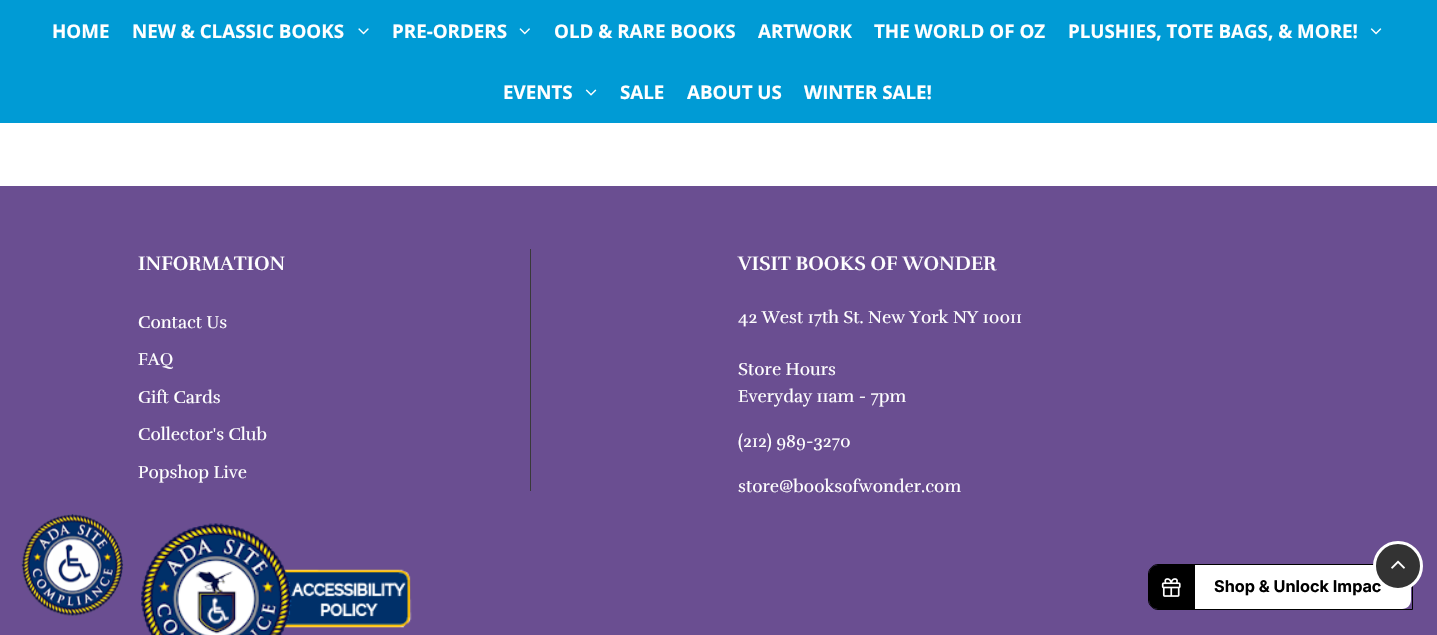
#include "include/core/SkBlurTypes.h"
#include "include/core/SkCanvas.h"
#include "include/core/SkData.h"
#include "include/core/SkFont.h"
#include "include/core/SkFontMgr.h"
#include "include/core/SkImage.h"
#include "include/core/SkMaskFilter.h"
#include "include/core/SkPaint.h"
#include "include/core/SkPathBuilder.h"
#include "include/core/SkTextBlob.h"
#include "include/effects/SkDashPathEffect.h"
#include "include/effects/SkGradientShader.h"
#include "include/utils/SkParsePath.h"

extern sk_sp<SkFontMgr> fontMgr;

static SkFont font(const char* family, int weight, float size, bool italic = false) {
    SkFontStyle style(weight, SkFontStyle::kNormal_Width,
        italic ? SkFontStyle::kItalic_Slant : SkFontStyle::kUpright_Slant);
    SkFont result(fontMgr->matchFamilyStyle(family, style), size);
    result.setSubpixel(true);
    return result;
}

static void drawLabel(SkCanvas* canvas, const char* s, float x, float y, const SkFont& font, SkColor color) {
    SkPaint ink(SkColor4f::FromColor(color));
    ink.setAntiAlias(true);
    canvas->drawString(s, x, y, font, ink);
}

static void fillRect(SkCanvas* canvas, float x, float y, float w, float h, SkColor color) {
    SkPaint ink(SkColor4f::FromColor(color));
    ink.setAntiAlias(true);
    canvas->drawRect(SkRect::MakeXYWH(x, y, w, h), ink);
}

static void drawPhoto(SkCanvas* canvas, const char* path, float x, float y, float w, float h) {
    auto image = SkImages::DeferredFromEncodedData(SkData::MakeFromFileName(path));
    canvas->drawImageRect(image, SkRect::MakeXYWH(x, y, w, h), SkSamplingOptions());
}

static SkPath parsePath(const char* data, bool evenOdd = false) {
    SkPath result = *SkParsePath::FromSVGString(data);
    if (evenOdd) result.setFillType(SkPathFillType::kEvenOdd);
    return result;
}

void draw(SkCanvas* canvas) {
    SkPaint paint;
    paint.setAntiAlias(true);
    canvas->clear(0xFFFFFFFF);
    fillRect(canvas, 0, 0, 1437, 123, 0xFF009BD5);
    SkFont font1 = font("Open Sans", 700, 18.75f);
    drawLabel(canvas, "HOME", 52, 38, font1, 0xFFFFFFFF);
    drawLabel(canvas, "NEW & CLASSIC BOOKS", 132, 38, font1, 0xFFFFFFFF);
    drawPhoto(canvas, "assets/img1.png", 358, 28, 11, 7);
    drawLabel(canvas, "PRE-ORDERS", 392, 38, font1, 0xFFFFFFFF);
    drawPhoto(canvas, "assets/img2.png", 519, 28, 11, 7);
    drawLabel(canvas, "OLD & RARE BOOKS", 554, 38, font1, 0xFFFFFFFF);
    drawLabel(canvas, "ARTWORK", 758, 38, font1, 0xFFFFFFFF);
    drawLabel(canvas, "THE WORLD OF OZ", 874, 38, font1, 0xFFFFFFFF);
    drawLabel(canvas, "PLUSHIES, TOTE BAGS, & MORE!", 1068, 38, font1, 0xFFFFFFFF);
    drawPhoto(canvas, "assets/img3.png", 1370, 28, 12, 7);
    drawLabel(canvas, "EVENTS", 503, 99, font1, 0xFFFFFFFF);
    drawPhoto(canvas, "assets/img4.png", 585, 89, 12, 7);
    drawLabel(canvas, "SALE", 620, 99, font1, 0xFFFFFFFF);
    drawLabel(canvas, "ABOUT US", 687, 99, font1, 0xFFFFFFFF);
    drawLabel(canvas, "WINTER SALE!", 804, 99, font1, 0xFFFFFFFF);
    fillRect(canvas, 0, 186, 1437, 449, 0xFF6A4E91);
    SkFont font2 = font("Rufina", 700, 20);
    drawLabel(canvas, "INFORMATION", 138, 270, font2, 0xFFFFFFFF);
    fillRect(canvas, 530, 249, 1, 242, 0xFF393939);
    SkFont font3 = font("Rufina", 400, 17.5f);
    drawLabel(canvas, "Contact Us", 138, 328, font3, 0xFFFFFFFF);
    drawLabel(canvas, "FAQ", 138, 365, font3, 0xFFFFFFFF);
    drawLabel(canvas, "Gift Cards", 138, 403, font3, 0xFFFFFFFF);
    drawLabel(canvas, "Collector's Club", 138, 440, font3, 0xFFFFFFFF);
    drawLabel(canvas, "Popshop Live", 138, 478, font3, 0xFFFFFFFF);
    drawLabel(canvas, "VISIT BOOKS OF WONDER", 738, 270, font2, 0xFFFFFFFF);
    drawLabel(canvas, "42 West 17th St. New York NY 10011", 738, 323, font3, 0xFFFFFFFF);
    drawLabel(canvas, "Store Hours", 738, 375, font3, 0xFFFFFFFF);
    drawLabel(canvas, "Everyday 11am - 7pm", 738, 402, font3, 0xFFFFFFFF);
    drawLabel(canvas, "(212) 989-3270", 738, 447, font3, 0xFFFFFFFF);
    drawLabel(canvas, "store@booksofwonder.com", 738, 492, font3, 0xFFFFFFFF);
    drawPhoto(canvas, "assets/img5.png", 141, 523, 271, 112);
    drawPhoto(canvas, "assets/img6.png", 21, 514, 103, 102);
    paint.setStroke(true);
    paint.setStrokeWidth(1);
    paint.setColor(0xFF000000);
    canvas->drawPath(parsePath("M1158 564.5H1403C1408 564.5 1412.5 569 1412.5 574V609.5H1158C1153 609.5 1148.5 605 1148.5 600V574C1148.5 569 1153 564.5 1158 564.5Z"), paint);
    paint.setStroke(false);
    canvas->drawPath(parsePath("M1158 565H1194V609H1158C1153 609 1149 605 1149 600V574C1149 569 1153 565 1158 565Z"), paint);
    drawPhoto(canvas, "assets/img7.png", 1161, 578, 20, 19);
    paint.setColor(0xFFFFFFFF);
    canvas->drawPath(parsePath("M1194 565H1402C1407 565 1411 569 1411 574V600C1411 605 1407 609 1402 609H1194Z"), paint);
    fillRect(canvas, 1194, 565, 1, 44, 0xFF000000);
    SkFont font4 = font("Inter", 700, 16.25f);
    drawLabel(canvas, "Shop & Unlock Impac", 1214, 592, font4, 0xFF000000);
    paint.setColor(0xFF333333);
    canvas->drawCircle(1398, 566, 23.5f, paint);
    paint.setStroke(true);
    paint.setStrokeWidth(3);
    paint.setColor(0xFFFFFFFF);
    canvas->drawCircle(1398, 566, 23.5f, paint);
    drawPhoto(canvas, "assets/img8.png", 1391, 560, 14, 9);
}
